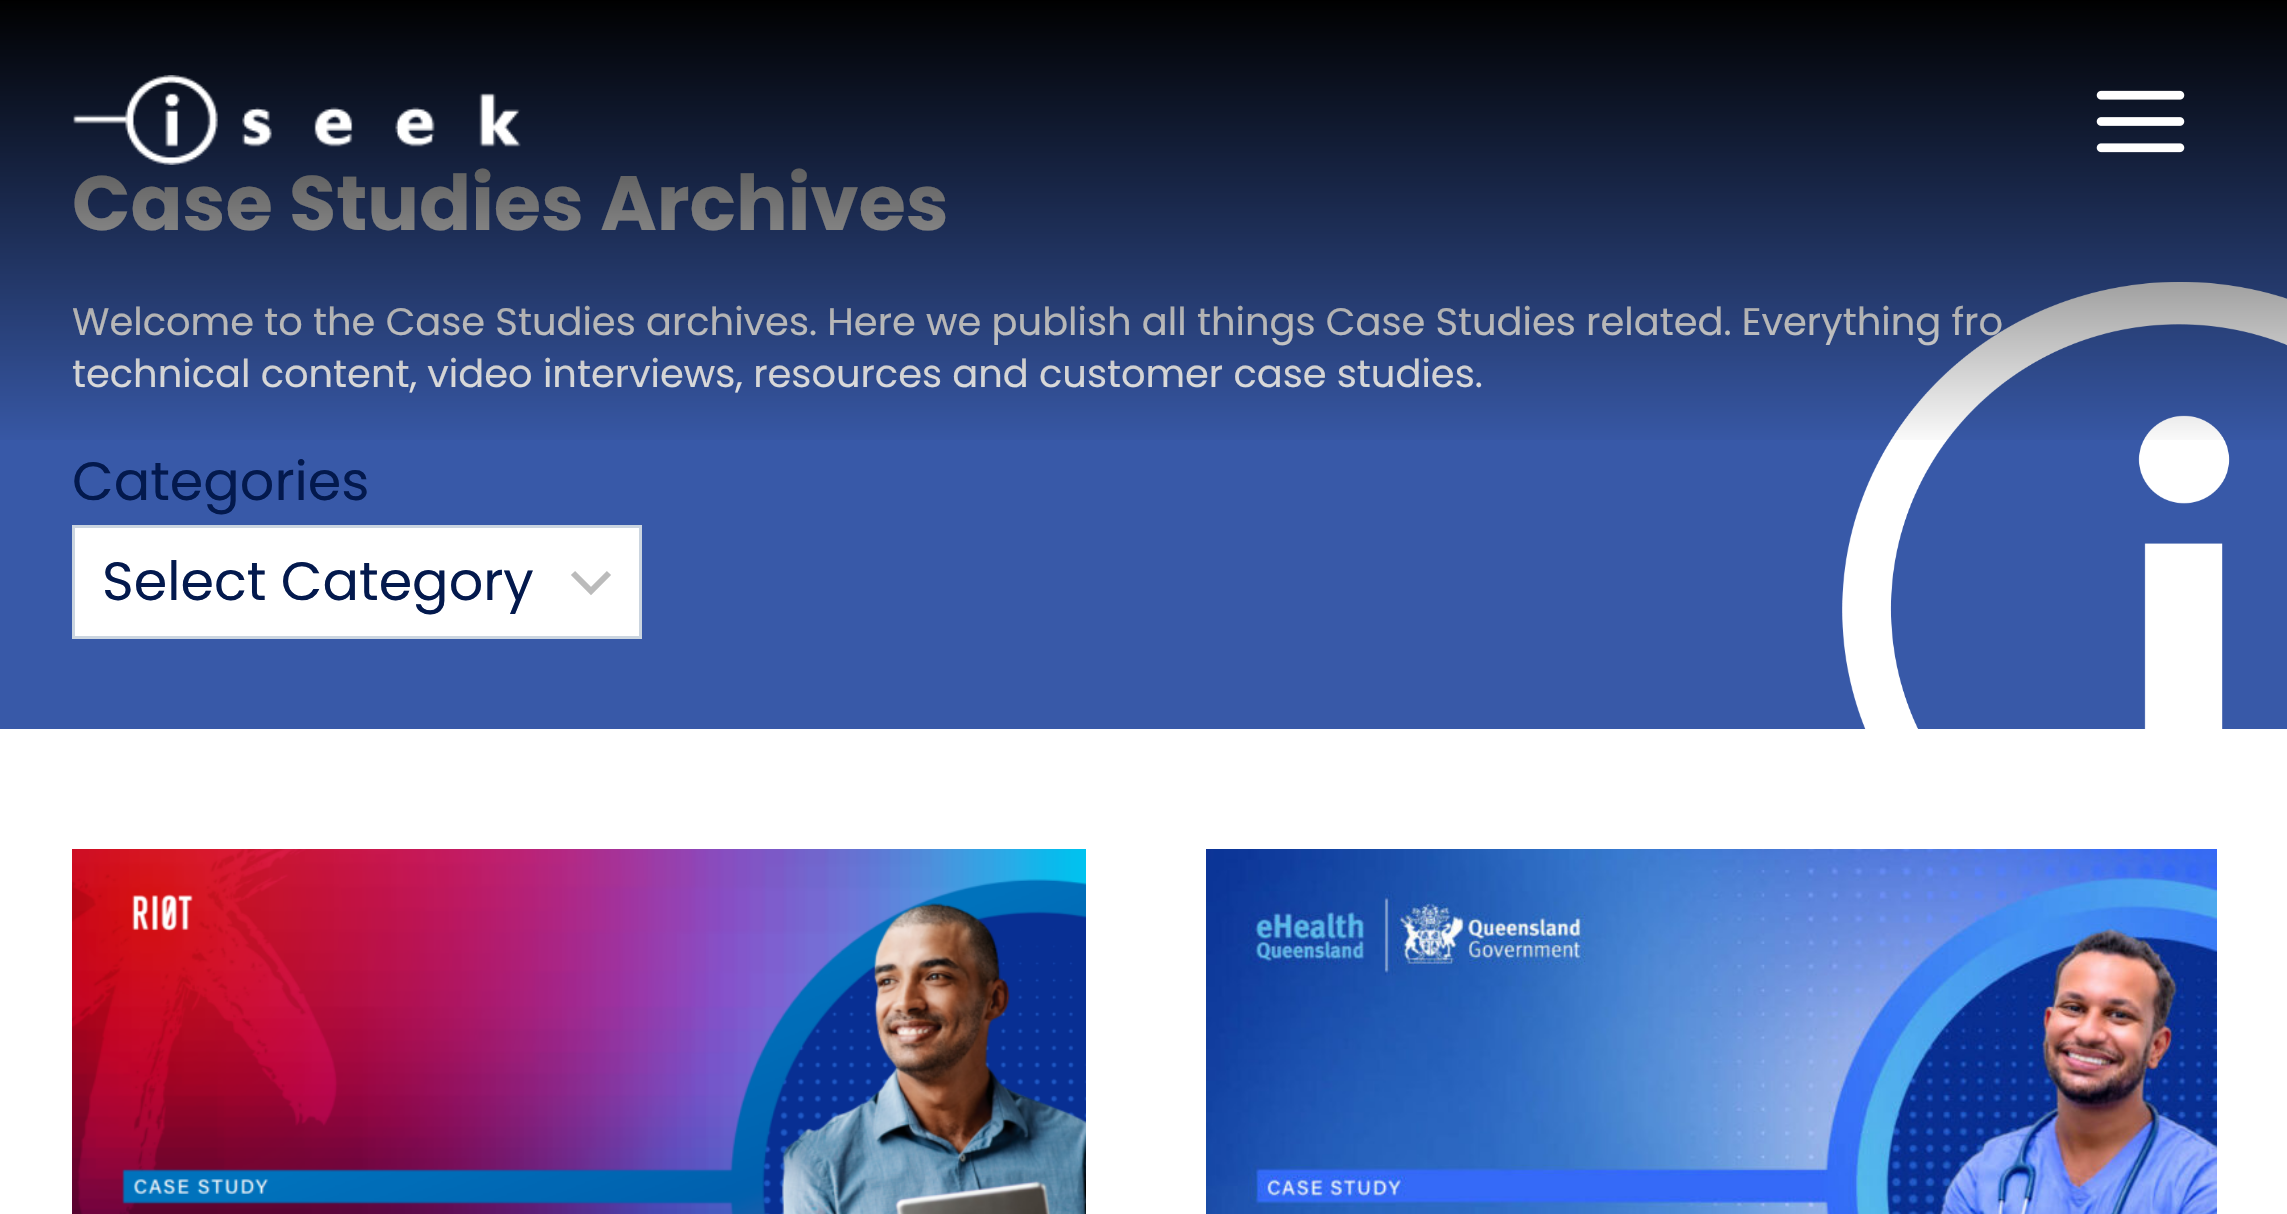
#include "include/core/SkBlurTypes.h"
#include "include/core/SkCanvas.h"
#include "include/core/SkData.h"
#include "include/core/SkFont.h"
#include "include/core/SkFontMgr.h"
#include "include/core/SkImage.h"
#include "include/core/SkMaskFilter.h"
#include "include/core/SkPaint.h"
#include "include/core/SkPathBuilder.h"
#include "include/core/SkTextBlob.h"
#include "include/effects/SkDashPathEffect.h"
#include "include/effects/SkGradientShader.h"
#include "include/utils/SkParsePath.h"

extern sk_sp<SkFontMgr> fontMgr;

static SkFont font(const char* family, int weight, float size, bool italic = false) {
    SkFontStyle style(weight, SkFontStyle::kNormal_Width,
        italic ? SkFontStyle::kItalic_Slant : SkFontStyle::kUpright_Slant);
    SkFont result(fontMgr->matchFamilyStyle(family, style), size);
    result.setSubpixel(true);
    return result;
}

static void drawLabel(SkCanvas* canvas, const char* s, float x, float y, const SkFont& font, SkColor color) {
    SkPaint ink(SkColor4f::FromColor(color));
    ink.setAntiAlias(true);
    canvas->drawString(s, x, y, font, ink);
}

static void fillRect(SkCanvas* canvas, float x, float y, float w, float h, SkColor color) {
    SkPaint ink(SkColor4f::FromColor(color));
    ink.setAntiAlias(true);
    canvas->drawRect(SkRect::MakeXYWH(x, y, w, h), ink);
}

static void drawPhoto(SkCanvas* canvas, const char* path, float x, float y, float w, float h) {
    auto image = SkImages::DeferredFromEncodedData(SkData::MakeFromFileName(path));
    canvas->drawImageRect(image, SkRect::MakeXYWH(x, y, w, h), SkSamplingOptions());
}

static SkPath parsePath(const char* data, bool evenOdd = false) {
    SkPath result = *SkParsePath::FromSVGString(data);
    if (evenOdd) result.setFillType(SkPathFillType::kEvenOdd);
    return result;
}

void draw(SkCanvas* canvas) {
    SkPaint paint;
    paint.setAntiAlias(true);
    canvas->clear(0xFFFFFFFF);
    fillRect(canvas, 0, 3, 2287, 726, 0xFF3859A8);
    drawPhoto(canvas, "assets/img3.png", 1842, 282, 445, 447);
    SkFont font1 = font("Poppins", 700, 76.75f);
    drawLabel(canvas, "Case Studies Archives", 72, 230, font1, 0xFFFFFFFF);
    SkFont font2 = font("Poppins", 400, 38.4f);
    drawLabel(canvas, "Welcome to the Case Studies archives. Here we publish all things Case Studies related. Everything fro", 72, 335, font2, 0xFFFFFFFF);
    drawLabel(canvas, "technical content, video interviews, resources and customer case studies.", 72, 387, font2, 0xFFFFFFFF);
    {
        const SkColor colors[] = {0xFF000000, 0x00000000};
        const float stops[] = {0, 1};
        const SkPoint ends[] = {{1145, 0}, {1145, 450}};
        paint.setShader(SkGradientShader::MakeLinear(ends, colors, stops, 2, SkTileMode::kClamp));
        paint.setAlpha(255);
    }
    canvas->drawRect(SkRect::MakeXYWH(0, 0, 2287, 440), paint);
    drawPhoto(canvas, "assets/img1.png", 73, 75, 448, 90);
    drawPhoto(canvas, "assets/img2.png", 2096, 90, 89, 63);
    SkFont font3 = font("Poppins", 400, 54);
    drawLabel(canvas, "Categories", 72, 500, font3, 0xFF03194D);
    fillRect(canvas, 75, 528, 564, 108, 0xFFFFFFFF);
    paint.setStroke(true);
    paint.setStrokeWidth(6);
    paint.setShader(nullptr);
    paint.setColor(0xFFBBBBBB);
    canvas->drawPath(parsePath("M573 573L591 591L609 573"), paint);
    paint.setStrokeWidth(3);
    paint.setColor(0xFFCBD5E0);
    canvas->drawRect(SkRect::MakeXYWH(73.5f, 526.5f, 567, 111), paint);
    drawLabel(canvas, "Select Category", 102, 600, font3, 0xFF03194D);
    drawPhoto(canvas, "assets/img4.png", 72, 849, 1014, 365);
    drawPhoto(canvas, "assets/img5.png", 1206, 849, 1011, 365);
}
